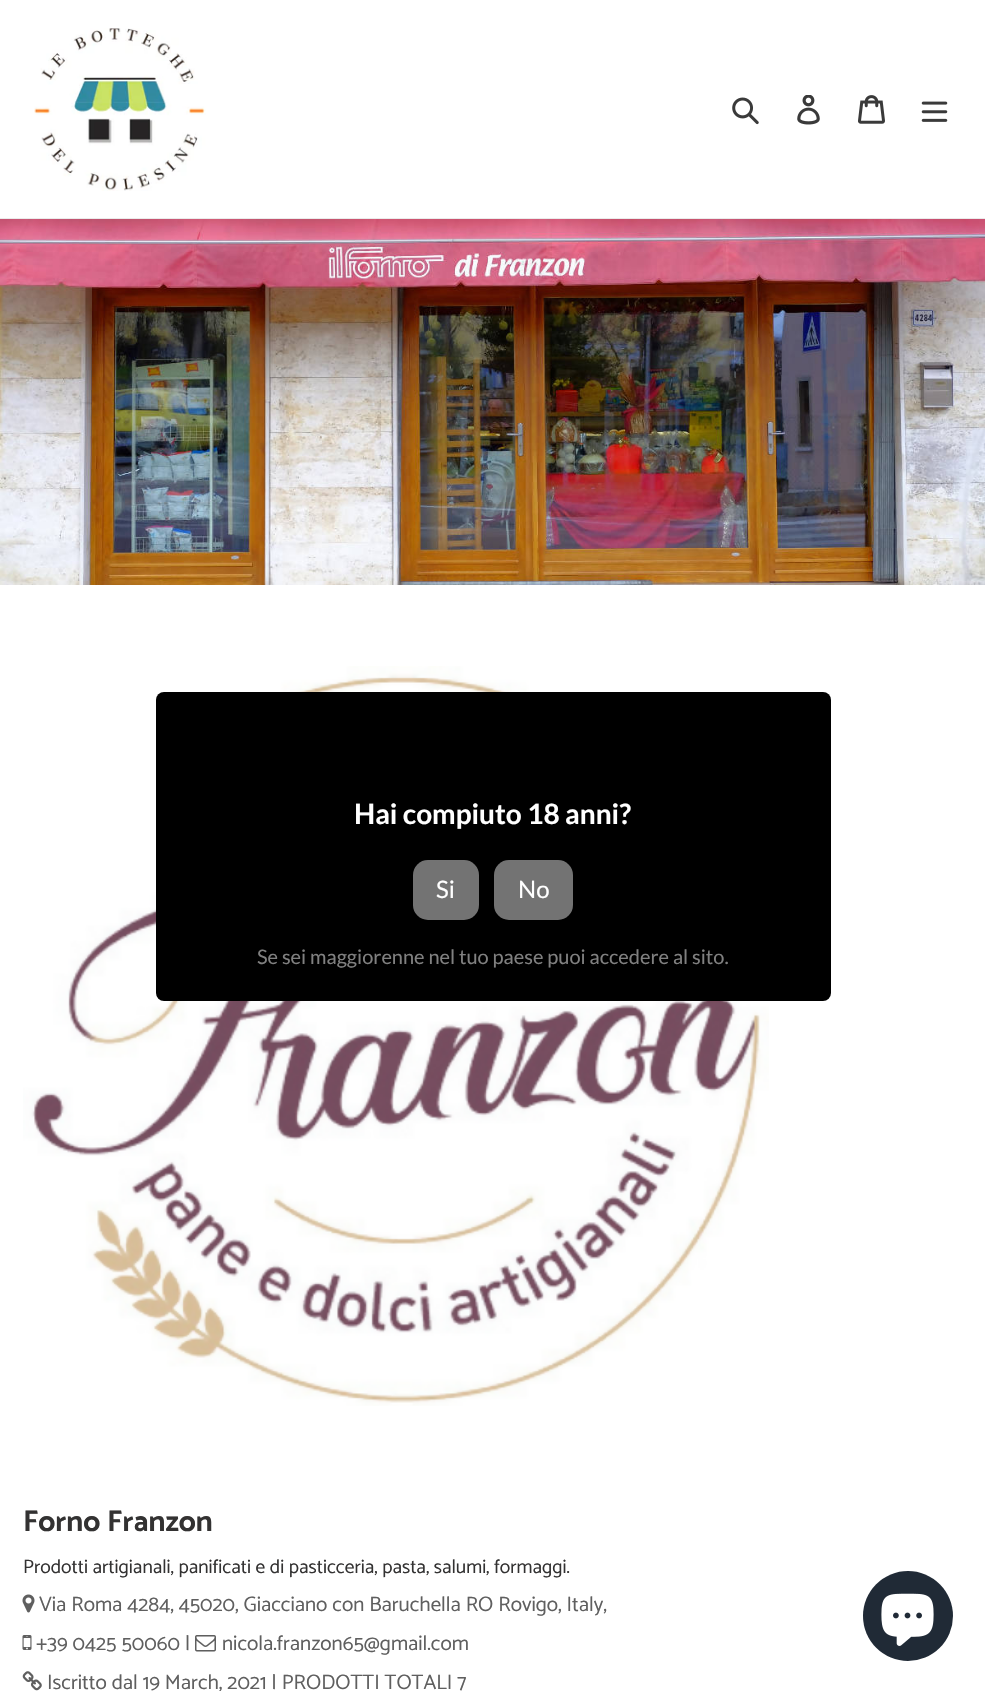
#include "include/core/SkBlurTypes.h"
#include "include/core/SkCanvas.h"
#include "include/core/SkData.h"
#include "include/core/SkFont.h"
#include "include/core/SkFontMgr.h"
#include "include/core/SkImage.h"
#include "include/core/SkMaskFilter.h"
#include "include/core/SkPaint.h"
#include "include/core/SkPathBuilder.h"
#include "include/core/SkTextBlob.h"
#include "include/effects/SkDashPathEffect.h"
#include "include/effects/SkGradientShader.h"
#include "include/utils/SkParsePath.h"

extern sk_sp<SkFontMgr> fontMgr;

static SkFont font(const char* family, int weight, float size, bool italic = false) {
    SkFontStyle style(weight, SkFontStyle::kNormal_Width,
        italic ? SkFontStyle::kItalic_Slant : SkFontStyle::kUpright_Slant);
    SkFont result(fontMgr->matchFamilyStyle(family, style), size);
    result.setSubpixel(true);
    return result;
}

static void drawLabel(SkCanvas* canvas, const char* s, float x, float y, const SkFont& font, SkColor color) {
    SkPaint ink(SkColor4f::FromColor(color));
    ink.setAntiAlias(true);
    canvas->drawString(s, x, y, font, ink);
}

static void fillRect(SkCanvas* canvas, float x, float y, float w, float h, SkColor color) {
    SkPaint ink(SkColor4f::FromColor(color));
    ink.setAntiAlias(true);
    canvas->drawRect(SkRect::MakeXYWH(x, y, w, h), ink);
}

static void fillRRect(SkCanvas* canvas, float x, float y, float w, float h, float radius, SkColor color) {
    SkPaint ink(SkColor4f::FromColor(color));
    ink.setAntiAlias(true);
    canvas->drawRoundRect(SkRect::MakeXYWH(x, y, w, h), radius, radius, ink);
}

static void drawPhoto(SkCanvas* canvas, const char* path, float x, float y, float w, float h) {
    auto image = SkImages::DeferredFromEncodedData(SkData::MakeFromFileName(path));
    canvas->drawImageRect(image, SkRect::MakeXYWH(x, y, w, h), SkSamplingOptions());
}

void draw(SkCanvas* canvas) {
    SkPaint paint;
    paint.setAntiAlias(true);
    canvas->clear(0xFFFFFFFF);
    fillRect(canvas, 0, 218, 985, 1, 0xFFEBEBEB);
    drawPhoto(canvas, "assets/img1.png", 34, 28, 172, 163);
    drawPhoto(canvas, "assets/img2.png", 732, 97, 27, 28);
    drawPhoto(canvas, "assets/img3.png", 797, 95, 23, 30);
    drawPhoto(canvas, "assets/img4.png", 858, 95, 27, 29);
    drawPhoto(canvas, "assets/img5.png", 921, 101, 27, 21);
    drawPhoto(canvas, "assets/img7.png", 23, 666, 746, 740);
    fillRRect(canvas, 156, 692, 675, 309, 8, 0xFF000000);
    SkFont font1 = font("Lato", 700, 28);
    drawLabel(canvas, "Hai compiuto 18 anni?", 354, 824, font1, 0xFFFFFFFF);
    fillRRect(canvas, 413, 860, 66, 60, 15, 0xFF737373);
    SkFont font2 = font("Lato", 400, 24);
    drawLabel(canvas, "Si", 436, 898, font2, 0xFFFFFFFF);
    fillRRect(canvas, 494, 860, 79, 60, 15, 0xFF737373);
    drawLabel(canvas, "No", 518, 898, font2, 0xFFFFFFFF);
    SkFont font3 = font("Lato", 400, 20);
    drawLabel(canvas, "Se sei maggiorenne nel tuo paese puoi accedere al sito.", 257, 964, font3, 0xFF808080);
    drawPhoto(canvas, "assets/img6.png", 0, 219, 985, 366);
    SkFont font4 = font("Catamaran", 700, 30);
    drawLabel(canvas, "Forno Franzon", 23, 1531, font4, 0xFF333232);
    SkFont font5 = font("Catamaran", 400, 19.5f);
    drawLabel(canvas, "Prodotti artigianali, panificati e di pasticceria, pasta, salumi, formaggi.", 23, 1573, font5, 0xFF333232);
    drawPhoto(canvas, "assets/img8.png", 22, 1594, 13, 19);
    SkFont font6 = font("Catamaran", 400, 21);
    drawLabel(canvas, "Via Roma 4284, 45020, Giacciano con Baruchella RO Rovigo, Italy,", 39, 1611, font6, 0xFF5F5F5F);
    drawPhoto(canvas, "assets/img9.png", 22, 1635, 10, 15);
    drawLabel(canvas, "+39 0425 50060 |", 36, 1650, font6, 0xFF5F5F5F);
    drawPhoto(canvas, "assets/img10.png", 195, 1635, 21, 17);
    drawLabel(canvas, "nicola.franzon65@gmail.com", 222, 1650, font6, 0xFF5F5F5F);
    drawPhoto(canvas, "assets/img11.png", 22, 1671, 20, 20);
    drawLabel(canvas, "Iscritto dal 19 March, 2021 | PRODOTTI TOTALI 7", 47, 1689, font6, 0xFF5F5F5F);
    paint.setColor(0xFF202A36);
    canvas->drawCircle(908, 1616, 45, paint);
    drawPhoto(canvas, "assets/img12.png", 881, 1593, 53, 53);
}
